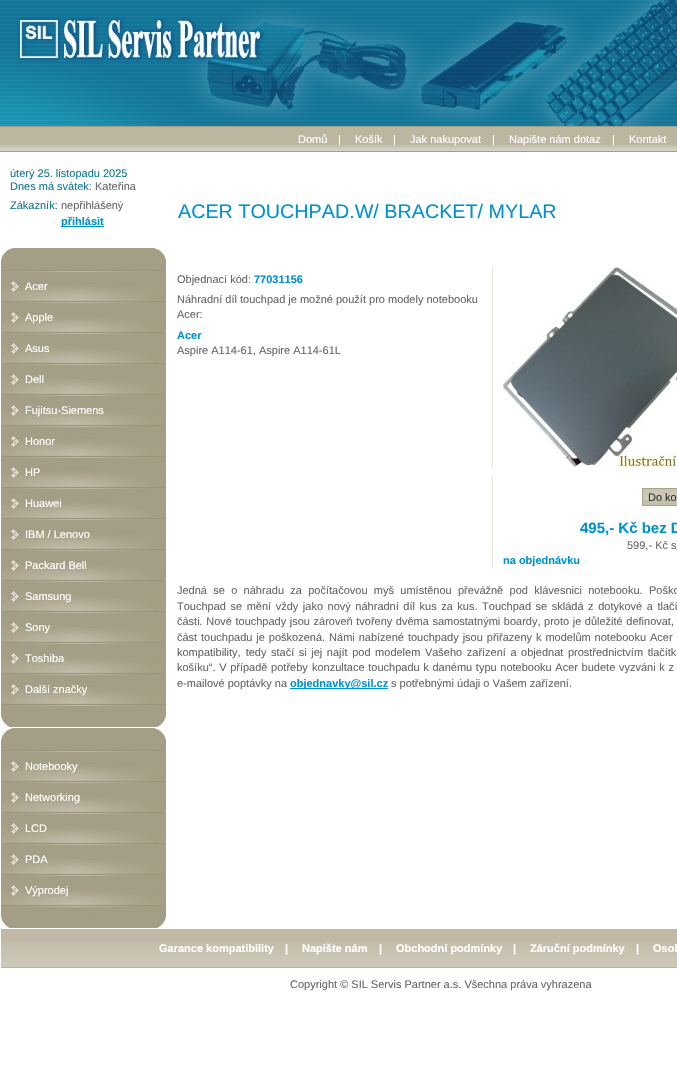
#include "include/core/SkBlurTypes.h"
#include "include/core/SkCanvas.h"
#include "include/core/SkData.h"
#include "include/core/SkFont.h"
#include "include/core/SkFontMgr.h"
#include "include/core/SkImage.h"
#include "include/core/SkMaskFilter.h"
#include "include/core/SkPaint.h"
#include "include/core/SkPathBuilder.h"
#include "include/core/SkTextBlob.h"
#include "include/effects/SkDashPathEffect.h"
#include "include/effects/SkGradientShader.h"
#include "include/utils/SkParsePath.h"

extern sk_sp<SkFontMgr> fontMgr;

static SkFont font(const char* family, int weight, float size, bool italic = false) {
    SkFontStyle style(weight, SkFontStyle::kNormal_Width,
        italic ? SkFontStyle::kItalic_Slant : SkFontStyle::kUpright_Slant);
    SkFont result(fontMgr->matchFamilyStyle(family, style), size);
    result.setSubpixel(true);
    return result;
}

static void drawLabel(SkCanvas* canvas, const char* s, float x, float y, const SkFont& font, SkColor color) {
    SkPaint ink(SkColor4f::FromColor(color));
    ink.setAntiAlias(true);
    canvas->drawString(s, x, y, font, ink);
}

static void drawTracked(SkCanvas* canvas, const char* s, float x, float y, const SkFont& font, const SkPaint& ink, float letter, float word) {
    std::vector<SkGlyphID> glyphs(font.countText(s, strlen(s), SkTextEncoding::kUTF8));
    std::vector<float> xs(glyphs.size());
    font.textToGlyphs(s, strlen(s), SkTextEncoding::kUTF8, glyphs);
    font.getXPos(glyphs, xs, x);
    float extra = 0;
    for (size_t i = 0; i < glyphs.size(); i++) {
        xs[i] += extra;
        extra += letter + word * (glyphs[i] == font.unicharToGlyph(' '));
    }
    canvas->drawTextBlob(SkTextBlob::MakeFromPosHGlyphs(glyphs, xs, y, font), 0, 0, ink);
}

static void fillRect(SkCanvas* canvas, float x, float y, float w, float h, SkColor color) {
    SkPaint ink(SkColor4f::FromColor(color));
    ink.setAntiAlias(true);
    canvas->drawRect(SkRect::MakeXYWH(x, y, w, h), ink);
}

static void drawPhoto(SkCanvas* canvas, const char* path, float x, float y, float w, float h) {
    auto image = SkImages::DeferredFromEncodedData(SkData::MakeFromFileName(path));
    canvas->drawImageRect(image, SkRect::MakeXYWH(x, y, w, h), SkSamplingOptions());
}

void draw(SkCanvas* canvas) {
    SkPaint paint;
    paint.setAntiAlias(true);
    canvas->clear(0xFFFFFFFF);
    drawPhoto(canvas, "assets/img1.png", 0, 0, 677, 126);
    fillRect(canvas, 0, 127, 670, 18, 0xFFBCB5A0);
    drawPhoto(canvas, "assets/img2.png", 0, 145, 670, 6);
    fillRect(canvas, 0, 126, 677, 1, 0xFFA39E86);
    fillRect(canvas, 0, 151, 677, 1, 0xFFA39E86);
    SkFont font1 = font("Liberation Sans", 400, 11);
    drawLabel(canvas, "Domů", 298, 143, font1, 0xFFFFFFFF);
    drawLabel(canvas, "|", 338, 143, font1, 0xFFFFFFFF);
    drawLabel(canvas, "Košík", 355, 143, font1, 0xFFFFFFFF);
    drawLabel(canvas, "|", 393, 143, font1, 0xFFFFFFFF);
    drawLabel(canvas, "Jak nakupovat", 410, 143, font1, 0xFFFFFFFF);
    drawLabel(canvas, "|", 492, 143, font1, 0xFFFFFFFF);
    drawLabel(canvas, "Napište nám dotaz", 509, 143, font1, 0xFFFFFFFF);
    drawLabel(canvas, "|", 612, 143, font1, 0xFFFFFFFF);
    drawLabel(canvas, "Kontakt", 629, 143, font1, 0xFFFFFFFF);
    drawPhoto(canvas, "assets/img3.png", 670, 126, 7, 28);
    drawLabel(canvas, "úterý 25. listopadu 2025", 10, 177, font1, 0xFF157696);
    drawLabel(canvas, "Dnes má svátek:", 10, 190, font1, 0xFF157696);
    drawLabel(canvas, "Kateřina", 95, 190, font1, 0xFF666666);
    drawLabel(canvas, "Zákazník:", 10, 209, font1, 0xFF157696);
    drawLabel(canvas, "nepřihlášený", 61, 209, font1, 0xFF666666);
    fillRect(canvas, 61, 226, 43, 1, 0xFF0091CF);
    SkFont font2 = font("Liberation Sans", 700, 11);
    drawLabel(canvas, "přihlásit", 61, 225, font2, 0xFF0091CF);
    drawPhoto(canvas, "assets/img4.png", 0, 248, 167, 23);
    drawPhoto(canvas, "assets/img5.png", 0, 271, 167, 31);
    drawLabel(canvas, "Acer", 25, 290, font1, 0xFFFFFFFF);
    drawPhoto(canvas, "assets/img5.png", 0, 302, 167, 31);
    drawLabel(canvas, "Apple", 25, 321, font1, 0xFFFFFFFF);
    drawPhoto(canvas, "assets/img5.png", 0, 333, 167, 31);
    drawLabel(canvas, "Asus", 25, 352, font1, 0xFFFFFFFF);
    drawPhoto(canvas, "assets/img5.png", 0, 364, 167, 31);
    drawLabel(canvas, "Dell", 25, 383, font1, 0xFFFFFFFF);
    drawPhoto(canvas, "assets/img5.png", 0, 395, 167, 31);
    drawLabel(canvas, "Fujitsu-Siemens", 25, 414, font1, 0xFFFFFFFF);
    drawPhoto(canvas, "assets/img5.png", 0, 426, 167, 31);
    drawLabel(canvas, "Honor", 25, 445, font1, 0xFFFFFFFF);
    drawPhoto(canvas, "assets/img5.png", 0, 457, 167, 31);
    drawLabel(canvas, "HP", 25, 476, font1, 0xFFFFFFFF);
    drawPhoto(canvas, "assets/img5.png", 0, 488, 167, 31);
    drawLabel(canvas, "Huawei", 25, 507, font1, 0xFFFFFFFF);
    drawPhoto(canvas, "assets/img5.png", 0, 519, 167, 31);
    drawLabel(canvas, "IBM / Lenovo", 25, 538, font1, 0xFFFFFFFF);
    drawPhoto(canvas, "assets/img5.png", 0, 550, 167, 31);
    drawLabel(canvas, "Packard Bell", 25, 569, font1, 0xFFFFFFFF);
    drawPhoto(canvas, "assets/img5.png", 0, 581, 167, 31);
    drawLabel(canvas, "Samsung", 25, 600, font1, 0xFFFFFFFF);
    drawPhoto(canvas, "assets/img5.png", 0, 612, 167, 31);
    drawLabel(canvas, "Sony", 25, 631, font1, 0xFFFFFFFF);
    drawPhoto(canvas, "assets/img5.png", 0, 643, 167, 31);
    drawLabel(canvas, "Toshiba", 25, 662, font1, 0xFFFFFFFF);
    drawPhoto(canvas, "assets/img5.png", 0, 674, 167, 31);
    drawLabel(canvas, "Další značky", 25, 693, font1, 0xFFFFFFFF);
    drawPhoto(canvas, "assets/img6.png", 0, 705, 167, 22);
    drawPhoto(canvas, "assets/img4.png", 0, 728, 167, 23);
    drawPhoto(canvas, "assets/img5.png", 0, 751, 167, 31);
    drawLabel(canvas, "Notebooky", 25, 770, font1, 0xFFFFFFFF);
    drawPhoto(canvas, "assets/img5.png", 0, 782, 167, 31);
    drawLabel(canvas, "Networking", 25, 801, font1, 0xFFFFFFFF);
    drawPhoto(canvas, "assets/img5.png", 0, 813, 167, 31);
    drawLabel(canvas, "LCD", 25, 832, font1, 0xFFFFFFFF);
    drawPhoto(canvas, "assets/img5.png", 0, 844, 167, 31);
    drawLabel(canvas, "PDA", 25, 863, font1, 0xFFFFFFFF);
    drawPhoto(canvas, "assets/img5.png", 0, 875, 167, 31);
    drawLabel(canvas, "Výprodej", 25, 894, font1, 0xFFFFFFFF);
    drawPhoto(canvas, "assets/img6.png", 0, 906, 167, 22);
    SkFont font3 = font("Liberation Sans", 400, 19.75f);
    drawLabel(canvas, "ACER TOUCHPAD.W/ BRACKET/ MYLAR", 178, 218, font3, 0xFF0091CF);
    drawLabel(canvas, "Objednací kód:", 177, 283, font1, 0xFF666666);
    drawLabel(canvas, "77031156", 254, 283, font2, 0xFF0091CF);
    fillRect(canvas, 492, 267, 1, 200, 0xFFE7E4DC);
    drawPhoto(canvas, "assets/img7.png", 503, 267, 174, 200);
    drawLabel(canvas, "Náhradní díl touchpad je možné použít pro modely notebooku", 177, 303, font1, 0xFF666666);
    drawLabel(canvas, "Acer:", 177, 318, font1, 0xFF666666);
    drawLabel(canvas, "Acer", 177, 339, font2, 0xFF0091CF);
    drawLabel(canvas, "Aspire A114-61, Aspire A114-61L", 177, 354, font1, 0xFF666666);
    paint.setColor(0xFF666666);
    drawTracked(canvas, "Jedná se o náhradu za počítačovou myš umístěnou převážně pod klávesnici notebooku.", 177, 594, font1, paint, 0, 3.25f);
    drawLabel(canvas, "Poško", 649, 594, font1, 0xFF666666);
    drawTracked(canvas, "Touchpad se mění vždy jako nový náhradní díl kus za kus. Touchpad se skládá z dotykové a tlačí", 177, 610, font1, paint, 0, 1.5f);
    drawTracked(canvas, "části. Nové touchpady jsou zároveň tvořeny dvěma samostatnými boardy, proto je důležité definovat,", 177, 625, font1, paint, 0, 0.5f);
    drawLabel(canvas, "část", 177, 641, font1, 0xFF666666);
    drawTracked(canvas, "touchpadu je poškozená. Námi nabízené touchpady jsou přiřazeny k modelům notebooku Acer", 201, 641, font1, paint, 0, 0.9f);
    drawTracked(canvas, "kompatibility, tedy", 177, 656, font1, paint, 0, 2);
    drawTracked(canvas, "stačí si jej najít pod modelem Vašeho zařízení a objednat prostřednictvím tlačítk", 271, 656, font1, paint, 0, 1.5f);
    drawTracked(canvas, "košíku“. V případě potřeby", 177, 671, font1, paint, 0, 0.6f);
    drawTracked(canvas, "konzultace touchpadu k danému typu notebooku Acer budete vyzváni k z", 312, 671, font1, paint, 0, 0.6f);
    drawLabel(canvas, "e-mailové poptávky na", 177, 687, font1, 0xFF666666);
    fillRect(canvas, 290, 688, 98, 1, 0xFF0091CF);
    drawLabel(canvas, "objednavky@sil.cz", 290, 687, font2, 0xFF0091CF);
    drawLabel(canvas, "s potřebnými údaji o Vašem zařízení.", 391, 687, font1, 0xFF666666);
    fillRect(canvas, 492, 477, 1, 91, 0xFFE7E4DC);
    fillRect(canvas, 643, 500, 34, 5, 0xFFC4BEAC);
    drawPhoto(canvas, "assets/img8.png", 643, 489, 34, 11);
    paint.setStroke(true);
    paint.setStrokeWidth(1);
    paint.setColor(0xFFA9A48B);
    canvas->drawRect(SkRect::MakeXYWH(642.5f, 488.5f, 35, 17), paint);
    drawLabel(canvas, "Do ko", 648, 501, font1, 0xFF323029);
    SkFont font4 = font("Liberation Sans", 700, 15);
    drawLabel(canvas, "495,- Kč bez D", 580, 533, font4, 0xFF0091CF);
    drawLabel(canvas, "599,- Kč s", 627, 549, font1, 0xFF666666);
    drawLabel(canvas, "na objednávku", 503, 564, font2, 0xFF0091CF);
    fillRect(canvas, 1, 930, 676, 11, 0xFFBFB9A5);
    drawPhoto(canvas, "assets/img9.png", 1, 941, 676, 26);
    fillRect(canvas, 1, 929, 676, 1, 0xFFBDB6A1);
    fillRect(canvas, 1, 967, 676, 1, 0xFFBBB39F);
    drawLabel(canvas, "Garance kompatibility", 159, 952, font2, 0xFFFFFFFF);
    drawLabel(canvas, "|", 285, 952, font2, 0xFFFFFFFF);
    drawLabel(canvas, "Napište nám", 302, 952, font2, 0xFFFFFFFF);
    drawLabel(canvas, "|", 379, 952, font2, 0xFFFFFFFF);
    drawLabel(canvas, "Obchodní podmínky", 396, 952, font2, 0xFFFFFFFF);
    drawLabel(canvas, "|", 513, 952, font2, 0xFFFFFFFF);
    drawLabel(canvas, "Záruční podmínky", 530, 952, font2, 0xFFFFFFFF);
    drawLabel(canvas, "|", 636, 952, font2, 0xFFFFFFFF);
    drawLabel(canvas, "Osob", 653, 952, font2, 0xFFFFFFFF);
    drawLabel(canvas, "Copyright © SIL Servis Partner a.s. Všechna práva vyhrazena", 290, 988, font1, 0xFF666666);
}
